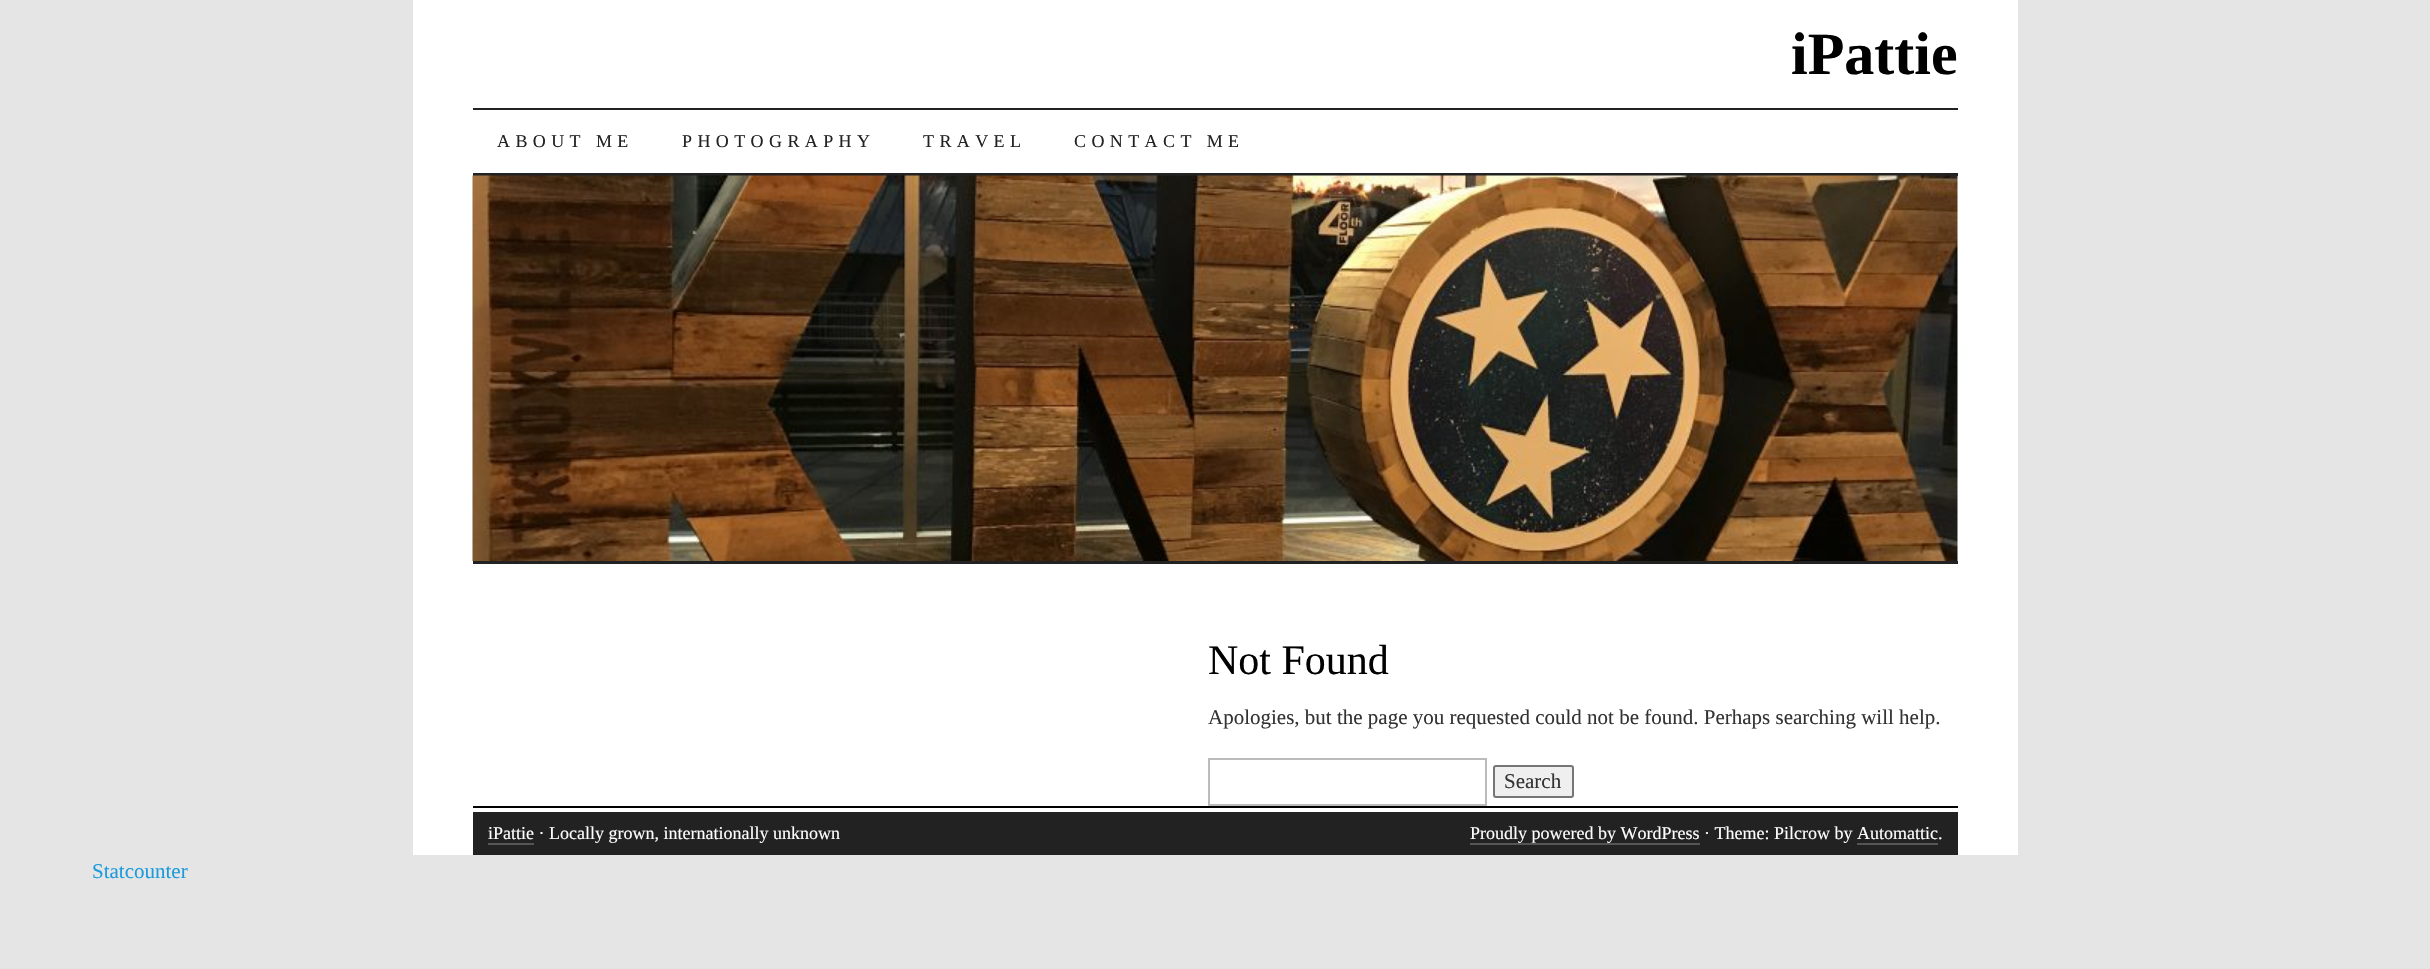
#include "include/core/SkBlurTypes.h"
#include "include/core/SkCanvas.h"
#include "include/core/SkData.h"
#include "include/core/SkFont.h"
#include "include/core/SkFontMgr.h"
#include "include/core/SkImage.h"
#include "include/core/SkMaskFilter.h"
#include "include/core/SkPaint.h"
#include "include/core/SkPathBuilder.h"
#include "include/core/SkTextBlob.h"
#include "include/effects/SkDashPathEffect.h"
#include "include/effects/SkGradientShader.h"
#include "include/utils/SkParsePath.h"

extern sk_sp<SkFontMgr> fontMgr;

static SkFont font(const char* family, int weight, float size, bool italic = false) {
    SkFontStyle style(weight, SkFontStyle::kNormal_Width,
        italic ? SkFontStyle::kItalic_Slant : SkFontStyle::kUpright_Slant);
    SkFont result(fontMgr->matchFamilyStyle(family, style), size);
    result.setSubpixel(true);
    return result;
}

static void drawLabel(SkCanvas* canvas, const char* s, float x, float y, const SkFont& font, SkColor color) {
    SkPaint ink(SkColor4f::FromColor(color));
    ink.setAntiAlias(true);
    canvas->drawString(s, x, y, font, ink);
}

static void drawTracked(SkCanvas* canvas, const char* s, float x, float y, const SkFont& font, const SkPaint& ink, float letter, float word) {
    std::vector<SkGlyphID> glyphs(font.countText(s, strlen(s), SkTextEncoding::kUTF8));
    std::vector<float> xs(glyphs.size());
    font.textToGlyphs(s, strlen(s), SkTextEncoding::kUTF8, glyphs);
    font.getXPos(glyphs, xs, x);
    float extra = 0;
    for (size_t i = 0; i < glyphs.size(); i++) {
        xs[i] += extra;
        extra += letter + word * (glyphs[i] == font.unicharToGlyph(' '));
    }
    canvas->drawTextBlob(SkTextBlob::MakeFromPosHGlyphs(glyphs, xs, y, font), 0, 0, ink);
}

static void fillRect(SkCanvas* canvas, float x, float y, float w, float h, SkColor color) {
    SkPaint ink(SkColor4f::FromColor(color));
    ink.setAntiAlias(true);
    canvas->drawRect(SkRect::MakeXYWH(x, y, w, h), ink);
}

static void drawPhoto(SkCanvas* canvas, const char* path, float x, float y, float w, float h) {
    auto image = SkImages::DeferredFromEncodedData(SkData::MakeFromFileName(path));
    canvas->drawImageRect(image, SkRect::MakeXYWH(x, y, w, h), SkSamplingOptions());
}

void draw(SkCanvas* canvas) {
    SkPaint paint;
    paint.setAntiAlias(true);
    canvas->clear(0xFFE5E5E5);
    fillRect(canvas, 413, 0, 1605, 855, 0xFFFFFFFF);
    SkFont font1 = font("Liberation Serif", 700, 60);
    drawLabel(canvas, "iPattie", 1791, 74, font1, 0xFF000000);
    fillRect(canvas, 473, 108, 1485, 2, 0xFF222222);
    fillRect(canvas, 473, 173, 1485, 3, 0xFF222222);
    SkFont font2 = font("Liberation Serif", 400, 18);
    paint.setColor(0xFF222222);
    drawTracked(canvas, "ABOUT ME", 497, 147, font2, paint, 5.4f, 0);
    drawTracked(canvas, "PHOTOGRAPHY", 682, 147, font2, paint, 5.4f, 0);
    drawTracked(canvas, "TRAVEL", 923, 147, font2, paint, 5.4f, 0);
    drawTracked(canvas, "CONTACT ME", 1074, 147, font2, paint, 5.4f, 0);
    drawPhoto(canvas, "assets/img1.png", 472, 175, 1486, 386);
    fillRect(canvas, 473, 561, 1485, 3, 0xFF222222);
    SkFont font3 = font("Liberation Serif", 400, 42);
    drawLabel(canvas, "Not Found", 1208, 674, font3, 0xFF000000);
    SkFont font4 = font("Liberation Serif", 400, 21);
    drawLabel(canvas, "Apologies, but the page you requested could not be found. Perhaps searching will help.", 1208, 724, font4, 0xFF333333);
    paint.setStroke(true);
    paint.setStrokeWidth(2);
    paint.setColor(0xFFBBBBBB);
    canvas->drawRect(SkRect::MakeXYWH(1209, 759, 277, 46), paint);
    paint.setStroke(false);
    paint.setColor(0xFFEFEFEF);
    canvas->drawRoundRect(SkRect::MakeXYWH(1494, 766, 79, 31), 2, 2, paint);
    paint.setStroke(true);
    paint.setColor(0xFF767676);
    canvas->drawRoundRect(SkRect::MakeXYWH(1494, 766, 79, 31), 2, 2, paint);
    drawLabel(canvas, "Search", 1504, 788, font4, 0xFF333333);
    fillRect(canvas, 473, 806, 1485, 2, 0xFF000000);
    fillRect(canvas, 473, 812, 1485, 43, 0xFF222222);
    drawLabel(canvas, "iPattie · Locally grown, internationally unknown", 488, 839, font2, 0xFFFFFFFF);
    fillRect(canvas, 488, 843, 46, 2, 0xFF555555);
    drawLabel(canvas, "Proudly powered by WordPress · Theme: Pilcrow by Automattic.", 1470, 839, font2, 0xFFFFFFFF);
    fillRect(canvas, 1470, 843, 230, 2, 0xFF555555);
    fillRect(canvas, 1857, 843, 81, 2, 0xFF555555);
    drawLabel(canvas, "Statcounter", 92, 878, font4, 0xFF1C9BDC);
}
